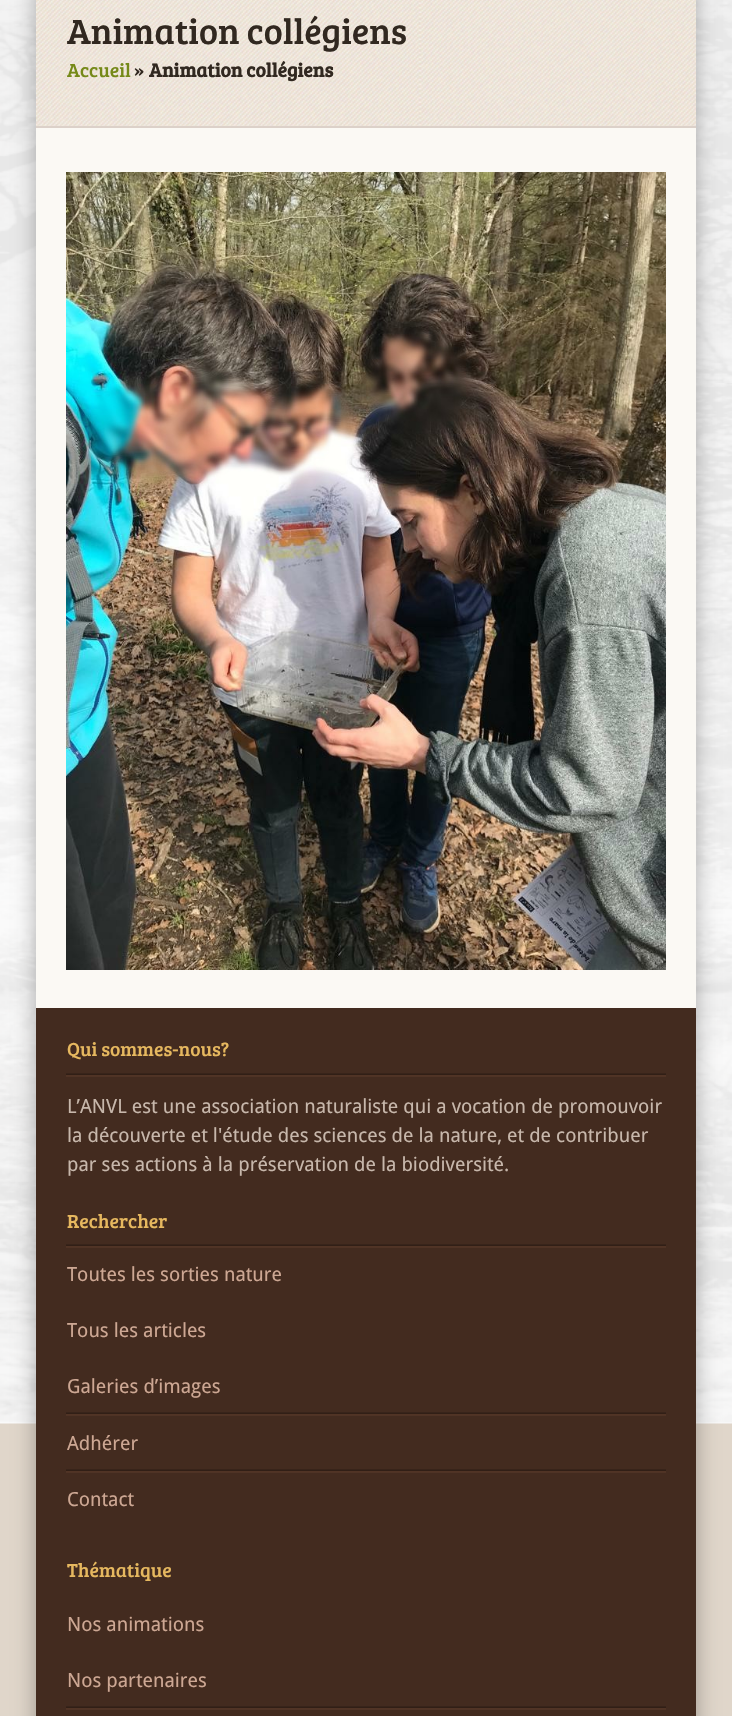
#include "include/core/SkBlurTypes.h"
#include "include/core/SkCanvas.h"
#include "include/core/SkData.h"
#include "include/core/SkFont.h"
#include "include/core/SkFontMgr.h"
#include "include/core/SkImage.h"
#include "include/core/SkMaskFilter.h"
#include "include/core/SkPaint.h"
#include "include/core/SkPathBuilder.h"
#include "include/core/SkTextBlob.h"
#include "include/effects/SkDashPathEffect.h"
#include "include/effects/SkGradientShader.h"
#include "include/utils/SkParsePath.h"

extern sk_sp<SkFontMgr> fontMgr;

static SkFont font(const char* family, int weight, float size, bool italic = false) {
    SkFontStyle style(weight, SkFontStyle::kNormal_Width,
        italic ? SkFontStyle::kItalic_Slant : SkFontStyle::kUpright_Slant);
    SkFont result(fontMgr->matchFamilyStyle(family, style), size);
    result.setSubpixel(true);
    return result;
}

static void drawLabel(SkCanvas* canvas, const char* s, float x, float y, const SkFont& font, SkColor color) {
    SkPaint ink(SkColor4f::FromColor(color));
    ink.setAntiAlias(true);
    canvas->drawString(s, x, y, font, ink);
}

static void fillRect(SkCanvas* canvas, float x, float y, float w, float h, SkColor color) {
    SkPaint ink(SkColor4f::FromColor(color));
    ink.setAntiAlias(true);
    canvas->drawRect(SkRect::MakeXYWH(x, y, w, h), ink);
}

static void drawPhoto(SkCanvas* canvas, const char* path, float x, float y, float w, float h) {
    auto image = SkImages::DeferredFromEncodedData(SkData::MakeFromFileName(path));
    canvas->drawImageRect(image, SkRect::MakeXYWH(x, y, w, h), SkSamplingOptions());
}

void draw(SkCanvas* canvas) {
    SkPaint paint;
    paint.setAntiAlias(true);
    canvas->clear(0xFFE0D6CA);
    drawPhoto(canvas, "assets/img1.png", 0, 0, 732, 1424);
    paint.setColor(0x4D000000);
    paint.setMaskFilter(SkMaskFilter::MakeBlur(kNormal_SkBlurStyle, 11));
    canvas->drawRoundRect(SkRect::MakeXYWH(36, -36, 660, 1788), 3, 3, paint);
    paint.setMaskFilter(nullptr);
    fillRect(canvas, 36, 128, 660, 880, 0xFFFBF9F4);
    drawPhoto(canvas, "assets/img2.png", 36, 0, 660, 126);
    fillRect(canvas, 36, 126, 660, 2, 0xFFDCD1C9);
    SkFont font1 = font("Bree Serif", 400, 36);
    drawLabel(canvas, "Animation collégiens", 67, 44, font1, 0xFF312820);
    SkFont font2 = font("Bree Serif", 400, 19.5f);
    drawLabel(canvas, "Accueil", 67, 77, font2, 0xFF758918);
    drawLabel(canvas, "»", 134, 77, font2, 0xFF312820);
    SkFont font3 = font("Bree Serif", 700, 19.5f);
    drawLabel(canvas, "Animation collégiens", 149, 77, font3, 0xFF312820);
    drawPhoto(canvas, "assets/img3.png", 66, 172, 600, 798);
    fillRect(canvas, 36, 1008, 660, 708, 0xFF432B1F);
    drawPhoto(canvas, "assets/img4.png", 66, 1073, 600, 4);
    drawLabel(canvas, "Qui sommes-nous?", 67, 1056, font2, 0xFFE6B85F);
    SkFont font4 = font("Droid Sans", 400, 19.5f);
    drawLabel(canvas, "L’ANVL est une association naturaliste qui a vocation de promouvoir", 67, 1113, font4, 0xFFC7B7AB);
    drawLabel(canvas, "la découverte et l'étude des sciences de la nature, et de contribuer", 67, 1142, font4, 0xFFC7B7AB);
    drawLabel(canvas, "par ses actions à la préservation de la biodiversité.", 67, 1171, font4, 0xFFC7B7AB);
    drawPhoto(canvas, "assets/img4.png", 66, 1244, 600, 4);
    drawLabel(canvas, "Rechercher", 67, 1228, font2, 0xFFE6B85F);
    drawLabel(canvas, "Toutes les sorties nature", 67, 1281, font4, 0xFFCDA793);
    drawLabel(canvas, "Tous les articles", 67, 1337, font4, 0xFFCDA793);
    drawPhoto(canvas, "assets/img4.png", 66, 1412, 600, 4);
    drawLabel(canvas, "Galeries d’images", 67, 1393, font4, 0xFFCDA793);
    drawPhoto(canvas, "assets/img4.png", 66, 1469, 600, 4);
    drawLabel(canvas, "Adhérer", 67, 1450, font4, 0xFFCDA793);
    drawLabel(canvas, "Contact", 67, 1506, font4, 0xFFCDA793);
    drawLabel(canvas, "Thématique", 67, 1577, font2, 0xFFE6B85F);
    drawLabel(canvas, "Nos animations", 67, 1631, font4, 0xFFCDA793);
    drawPhoto(canvas, "assets/img4.png", 66, 1706, 600, 4);
    drawLabel(canvas, "Nos partenaires", 67, 1687, font4, 0xFFCDA793);
}
